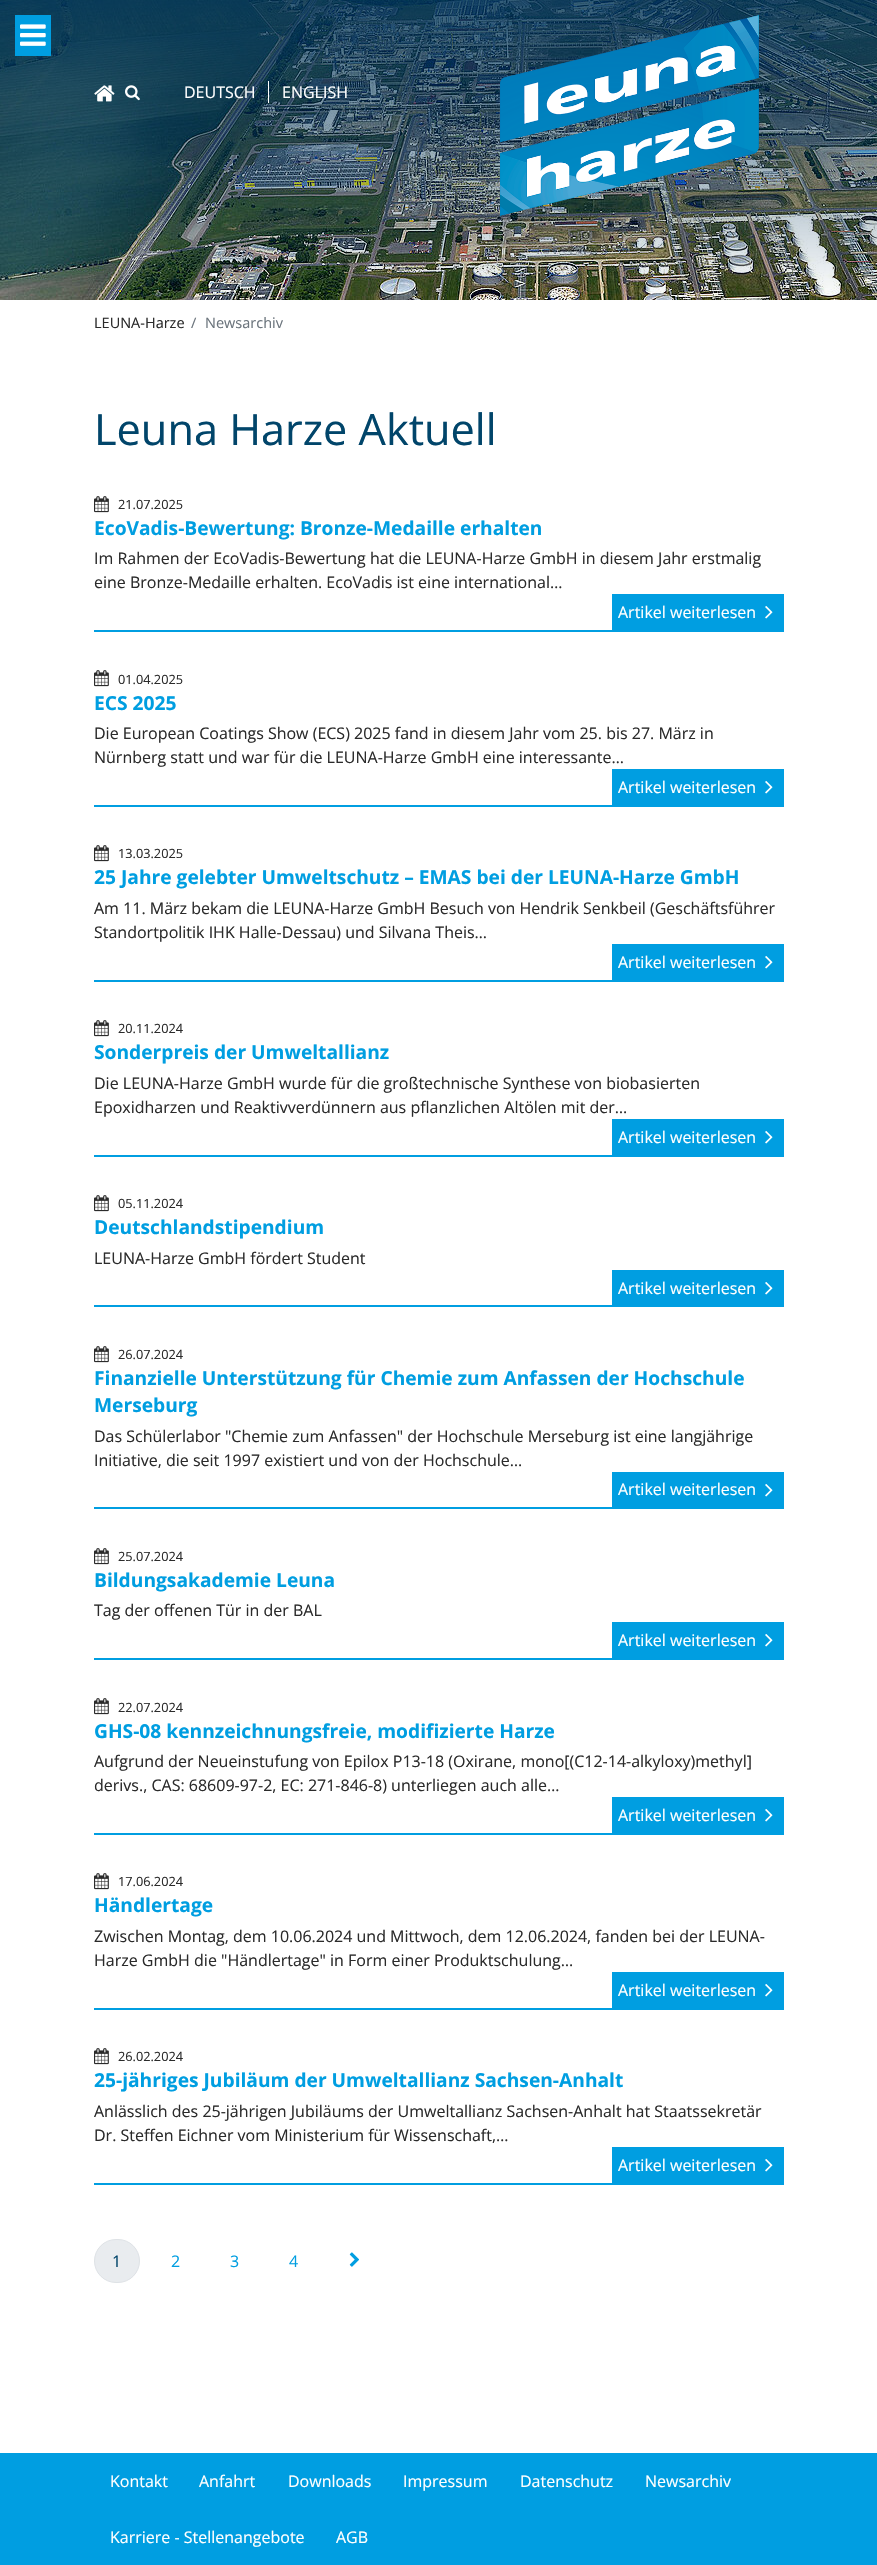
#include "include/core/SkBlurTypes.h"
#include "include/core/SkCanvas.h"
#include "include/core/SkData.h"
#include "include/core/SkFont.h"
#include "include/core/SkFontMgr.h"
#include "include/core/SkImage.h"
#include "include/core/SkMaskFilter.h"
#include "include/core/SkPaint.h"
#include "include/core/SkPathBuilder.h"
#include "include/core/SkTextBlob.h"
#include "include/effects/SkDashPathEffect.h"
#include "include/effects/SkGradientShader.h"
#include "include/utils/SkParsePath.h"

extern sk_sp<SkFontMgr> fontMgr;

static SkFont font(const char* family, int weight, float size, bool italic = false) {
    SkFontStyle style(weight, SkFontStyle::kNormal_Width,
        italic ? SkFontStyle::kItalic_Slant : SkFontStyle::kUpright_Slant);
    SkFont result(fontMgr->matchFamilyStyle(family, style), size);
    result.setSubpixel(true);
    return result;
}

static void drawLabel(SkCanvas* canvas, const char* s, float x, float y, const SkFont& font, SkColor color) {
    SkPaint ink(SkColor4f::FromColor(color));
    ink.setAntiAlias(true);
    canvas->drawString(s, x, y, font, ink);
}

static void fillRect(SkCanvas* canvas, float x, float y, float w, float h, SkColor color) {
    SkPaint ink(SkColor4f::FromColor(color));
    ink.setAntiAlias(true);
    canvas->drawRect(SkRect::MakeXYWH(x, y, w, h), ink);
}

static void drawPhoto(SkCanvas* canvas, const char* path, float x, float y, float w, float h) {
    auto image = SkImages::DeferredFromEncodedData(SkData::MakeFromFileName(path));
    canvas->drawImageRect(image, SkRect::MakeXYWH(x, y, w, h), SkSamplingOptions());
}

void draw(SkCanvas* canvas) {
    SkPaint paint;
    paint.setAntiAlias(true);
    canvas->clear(0xFFFFFFFF);
    drawPhoto(canvas, "assets/img1.png", 0, 0, 877, 300);
    fillRect(canvas, 15, 15, 36, 41, 0xFF009EE1);
    drawPhoto(canvas, "assets/img2.png", 20, 24, 26, 22);
    drawPhoto(canvas, "assets/img3.png", 94, 85, 21, 17);
    drawPhoto(canvas, "assets/img4.png", 125, 85, 15, 16);
    SkFont font1 = font("Open Sans", 400, 16);
    drawLabel(canvas, "DEUTSCH", 184, 98, font1, 0xFFFFFFFF);
    fillRect(canvas, 268, 81, 1, 22, 0xFFFFFFFF);
    drawLabel(canvas, "ENGLISH", 282, 98, font1, 0xFFFFFFFF);
    drawPhoto(canvas, "assets/img5.png", 499, 15, 260, 201);
    SkFont font2 = font("Open Sans", 400, 14.5f);
    drawLabel(canvas, "LEUNA-Harze", 94, 328, font2, 0xFF2B2B2B);
    drawLabel(canvas, "/", 191, 328, font2, 0xFF6C757D);
    drawLabel(canvas, "Newsarchiv", 205, 328, font2, 0xFF6C757D);
    SkFont font3 = font("Open Sans", 400, 43.25f);
    drawLabel(canvas, "Leuna Harze Aktuell", 94, 445, font3, 0xFF01456A);
    drawPhoto(canvas, "assets/img6.png", 94, 496, 15, 17);
    SkFont font4 = font("Open Sans", 400, 12.75f);
    drawLabel(canvas, "21.07.2025", 118, 509, font4, 0xFF2B2B2B);
    SkFont font5 = font("Open Sans", 700, 19.2f);
    drawLabel(canvas, "EcoVadis-Bewertung: Bronze-Medaille erhalten", 94, 535, font5, 0xFF009EE1);
    drawLabel(canvas, "Im Rahmen der EcoVadis-Bewertung hat die LEUNA-Harze GmbH in diesem Jahr erstmalig", 94, 564, font1, 0xFF2B2B2B);
    drawLabel(canvas, "eine Bronze-Medaille erhalten. EcoVadis ist eine international…", 94, 588, font1, 0xFF2B2B2B);
    fillRect(canvas, 94, 630, 690, 2, 0xFF009EE1);
    fillRect(canvas, 612, 594, 172, 36, 0xFF009EE1);
    drawLabel(canvas, "Artikel weiterlesen", 618, 618, font1, 0xFFFFFFFF);
    drawPhoto(canvas, "assets/img7.png", 765, 606, 8, 13);
    drawPhoto(canvas, "assets/img6.png", 94, 670, 15, 17);
    drawLabel(canvas, "01.04.2025", 118, 684, font4, 0xFF2B2B2B);
    drawLabel(canvas, "ECS 2025", 94, 710, font5, 0xFF009EE1);
    drawLabel(canvas, "Die European Coatings Show (ECS) 2025 fand in diesem Jahr vom 25. bis 27. März in", 94, 739, font1, 0xFF2B2B2B);
    drawLabel(canvas, "Nürnberg statt und war für die LEUNA-Harze GmbH eine interessante…", 94, 763, font1, 0xFF2B2B2B);
    fillRect(canvas, 94, 805, 690, 2, 0xFF009EE1);
    fillRect(canvas, 612, 769, 172, 36, 0xFF009EE1);
    drawLabel(canvas, "Artikel weiterlesen", 618, 793, font1, 0xFFFFFFFF);
    drawPhoto(canvas, "assets/img7.png", 765, 781, 8, 13);
    drawPhoto(canvas, "assets/img6.png", 94, 845, 15, 17);
    drawLabel(canvas, "13.03.2025", 118, 858, font4, 0xFF2B2B2B);
    drawLabel(canvas, "25 Jahre gelebter Umweltschutz – EMAS bei der LEUNA-Harze GmbH", 94, 884, font5, 0xFF009EE1);
    drawLabel(canvas, "Am 11. März bekam die LEUNA-Harze GmbH Besuch von Hendrik Senkbeil (Geschäftsführer", 94, 914, font1, 0xFF2B2B2B);
    drawLabel(canvas, "Standortpolitik IHK Halle-Dessau) und Silvana Theis…", 94, 938, font1, 0xFF2B2B2B);
    fillRect(canvas, 94, 980, 690, 2, 0xFF009EE1);
    fillRect(canvas, 612, 944, 172, 36, 0xFF009EE1);
    drawLabel(canvas, "Artikel weiterlesen", 618, 968, font1, 0xFFFFFFFF);
    drawPhoto(canvas, "assets/img7.png", 765, 956, 8, 13);
    drawPhoto(canvas, "assets/img6.png", 94, 1020, 15, 17);
    drawLabel(canvas, "20.11.2024", 118, 1033, font4, 0xFF2B2B2B);
    drawLabel(canvas, "Sonderpreis der Umweltallianz", 94, 1059, font5, 0xFF009EE1);
    drawLabel(canvas, "Die LEUNA-Harze GmbH wurde für die großtechnische Synthese von biobasierten", 94, 1089, font1, 0xFF2B2B2B);
    drawLabel(canvas, "Epoxidharzen und Reaktivverdünnern aus pflanzlichen Altölen mit der…", 94, 1113, font1, 0xFF2B2B2B);
    fillRect(canvas, 94, 1155, 690, 2, 0xFF009EE1);
    fillRect(canvas, 612, 1119, 172, 36, 0xFF009EE1);
    drawLabel(canvas, "Artikel weiterlesen", 618, 1143, font1, 0xFFFFFFFF);
    drawPhoto(canvas, "assets/img7.png", 765, 1131, 8, 13);
    drawPhoto(canvas, "assets/img6.png", 94, 1195, 15, 17);
    drawLabel(canvas, "05.11.2024", 118, 1208, font4, 0xFF2B2B2B);
    drawLabel(canvas, "Deutschlandstipendium", 94, 1234, font5, 0xFF009EE1);
    drawLabel(canvas, "LEUNA-Harze GmbH fördert Student", 94, 1264, font1, 0xFF2B2B2B);
    fillRect(canvas, 94, 1305, 690, 2, 0xFF009EE1);
    fillRect(canvas, 612, 1270, 172, 35, 0xFF009EE1);
    drawLabel(canvas, "Artikel weiterlesen", 618, 1294, font1, 0xFFFFFFFF);
    drawPhoto(canvas, "assets/img7.png", 765, 1282, 8, 13);
    drawPhoto(canvas, "assets/img6.png", 94, 1346, 15, 17);
    drawLabel(canvas, "26.07.2024", 118, 1359, font4, 0xFF2B2B2B);
    drawLabel(canvas, "Finanzielle Unterstützung für Chemie zum Anfassen der Hochschule", 94, 1385, font5, 0xFF009EE1);
    drawLabel(canvas, "Merseburg", 94, 1412, font5, 0xFF009EE1);
    drawLabel(canvas, "Das Schülerlabor \"Chemie zum Anfassen\" der Hochschule Merseburg ist eine langjährige", 94, 1442, font1, 0xFF2B2B2B);
    drawLabel(canvas, "Initiative, die seit 1997 existiert und von der Hochschule…", 94, 1466, font1, 0xFF2B2B2B);
    fillRect(canvas, 94, 1507, 690, 2, 0xFF009EE1);
    fillRect(canvas, 612, 1472, 172, 35, 0xFF009EE1);
    drawLabel(canvas, "Artikel weiterlesen", 618, 1495, font1, 0xFFFFFFFF);
    drawPhoto(canvas, "assets/img7.png", 765, 1484, 8, 13);
    drawPhoto(canvas, "assets/img6.png", 94, 1548, 15, 17);
    drawLabel(canvas, "25.07.2024", 118, 1561, font4, 0xFF2B2B2B);
    drawLabel(canvas, "Bildungsakademie Leuna", 94, 1587, font5, 0xFF009EE1);
    drawLabel(canvas, "Tag der offenen Tür in der BAL", 94, 1616, font1, 0xFF2B2B2B);
    fillRect(canvas, 94, 1658, 690, 2, 0xFF009EE1);
    fillRect(canvas, 612, 1622, 172, 36, 0xFF009EE1);
    drawLabel(canvas, "Artikel weiterlesen", 618, 1646, font1, 0xFFFFFFFF);
    drawPhoto(canvas, "assets/img7.png", 765, 1634, 8, 13);
    drawPhoto(canvas, "assets/img6.png", 94, 1698, 15, 17);
    drawLabel(canvas, "22.07.2024", 118, 1712, font4, 0xFF2B2B2B);
    drawLabel(canvas, "GHS-08 kennzeichnungsfreie, modifizierte Harze", 94, 1738, font5, 0xFF009EE1);
    drawLabel(canvas, "Aufgrund der Neueinstufung von Epilox P13-18 (Oxirane, mono[(C12-14-alkyloxy)methyl]", 94, 1767, font1, 0xFF2B2B2B);
    drawLabel(canvas, "derivs., CAS: 68609-97-2, EC: 271-846-8) unterliegen auch alle…", 94, 1791, font1, 0xFF2B2B2B);
    fillRect(canvas, 94, 1833, 690, 2, 0xFF009EE1);
    fillRect(canvas, 612, 1797, 172, 36, 0xFF009EE1);
    drawLabel(canvas, "Artikel weiterlesen", 618, 1821, font1, 0xFFFFFFFF);
    drawPhoto(canvas, "assets/img7.png", 765, 1809, 8, 13);
    drawPhoto(canvas, "assets/img6.png", 94, 1873, 15, 17);
    drawLabel(canvas, "17.06.2024", 118, 1886, font4, 0xFF2B2B2B);
    drawLabel(canvas, "Händlertage", 94, 1912, font5, 0xFF009EE1);
    drawLabel(canvas, "Zwischen Montag, dem 10.06.2024 und Mittwoch, dem 12.06.2024, fanden bei der LEUNA-", 94, 1942, font1, 0xFF2B2B2B);
    drawLabel(canvas, "Harze GmbH die \"Händlertage\" in Form einer Produktschulung…", 94, 1966, font1, 0xFF2B2B2B);
    fillRect(canvas, 94, 2008, 690, 2, 0xFF009EE1);
    fillRect(canvas, 612, 1972, 172, 36, 0xFF009EE1);
    drawLabel(canvas, "Artikel weiterlesen", 618, 1996, font1, 0xFFFFFFFF);
    drawPhoto(canvas, "assets/img7.png", 765, 1984, 8, 13);
    drawPhoto(canvas, "assets/img6.png", 94, 2048, 15, 17);
    drawLabel(canvas, "26.02.2024", 118, 2061, font4, 0xFF2B2B2B);
    drawLabel(canvas, "25-jähriges Jubiläum der Umweltallianz Sachsen-Anhalt", 94, 2087, font5, 0xFF009EE1);
    drawLabel(canvas, "Anlässlich des 25-jährigen Jubiläums der Umweltallianz Sachsen-Anhalt hat Staatssekretär", 94, 2117, font1, 0xFF2B2B2B);
    drawLabel(canvas, "Dr. Steffen Eichner vom Ministerium für Wissenschaft,…", 94, 2141, font1, 0xFF2B2B2B);
    fillRect(canvas, 94, 2183, 690, 2, 0xFF009EE1);
    fillRect(canvas, 612, 2147, 172, 36, 0xFF009EE1);
    drawLabel(canvas, "Artikel weiterlesen", 618, 2171, font1, 0xFFFFFFFF);
    drawPhoto(canvas, "assets/img7.png", 765, 2159, 8, 13);
    paint.setColor(0xFFE9ECEF);
    canvas->drawRoundRect(SkRect::MakeXYWH(94.5f, 2239.5f, 45, 43), 21.5f, 21.5f, paint);
    paint.setStroke(true);
    paint.setStrokeWidth(1);
    paint.setColor(0xFFDEE2E6);
    canvas->drawRoundRect(SkRect::MakeXYWH(94.5f, 2239.5f, 45, 43), 21.5f, 21.5f, paint);
    drawLabel(canvas, "1", 112, 2267, font1, 0xFF01456A);
    drawLabel(canvas, "2", 171, 2267, font1, 0xFF009EE1);
    drawLabel(canvas, "3", 230, 2267, font1, 0xFF009EE1);
    drawLabel(canvas, "4", 289, 2267, font1, 0xFF009EE1);
    drawPhoto(canvas, "assets/img8.png", 349, 2252, 10, 15);
    fillRect(canvas, 0, 2453, 877, 112, 0xFF009EE1);
    drawLabel(canvas, "Kontakt", 110, 2487, font1, 0xFFFFFFFF);
    drawLabel(canvas, "Anfahrt", 199, 2487, font1, 0xFFFFFFFF);
    drawLabel(canvas, "Downloads", 288, 2487, font1, 0xFFFFFFFF);
    drawLabel(canvas, "Impressum", 403, 2487, font1, 0xFFFFFFFF);
    drawLabel(canvas, "Datenschutz", 520, 2487, font1, 0xFFFFFFFF);
    drawLabel(canvas, "Newsarchiv", 645, 2487, font1, 0xFFFFFFFF);
    drawLabel(canvas, "Karriere - Stellenangebote", 110, 2543, font1, 0xFFFFFFFF);
    drawLabel(canvas, "AGB", 336, 2543, font1, 0xFFFFFFFF);
}
